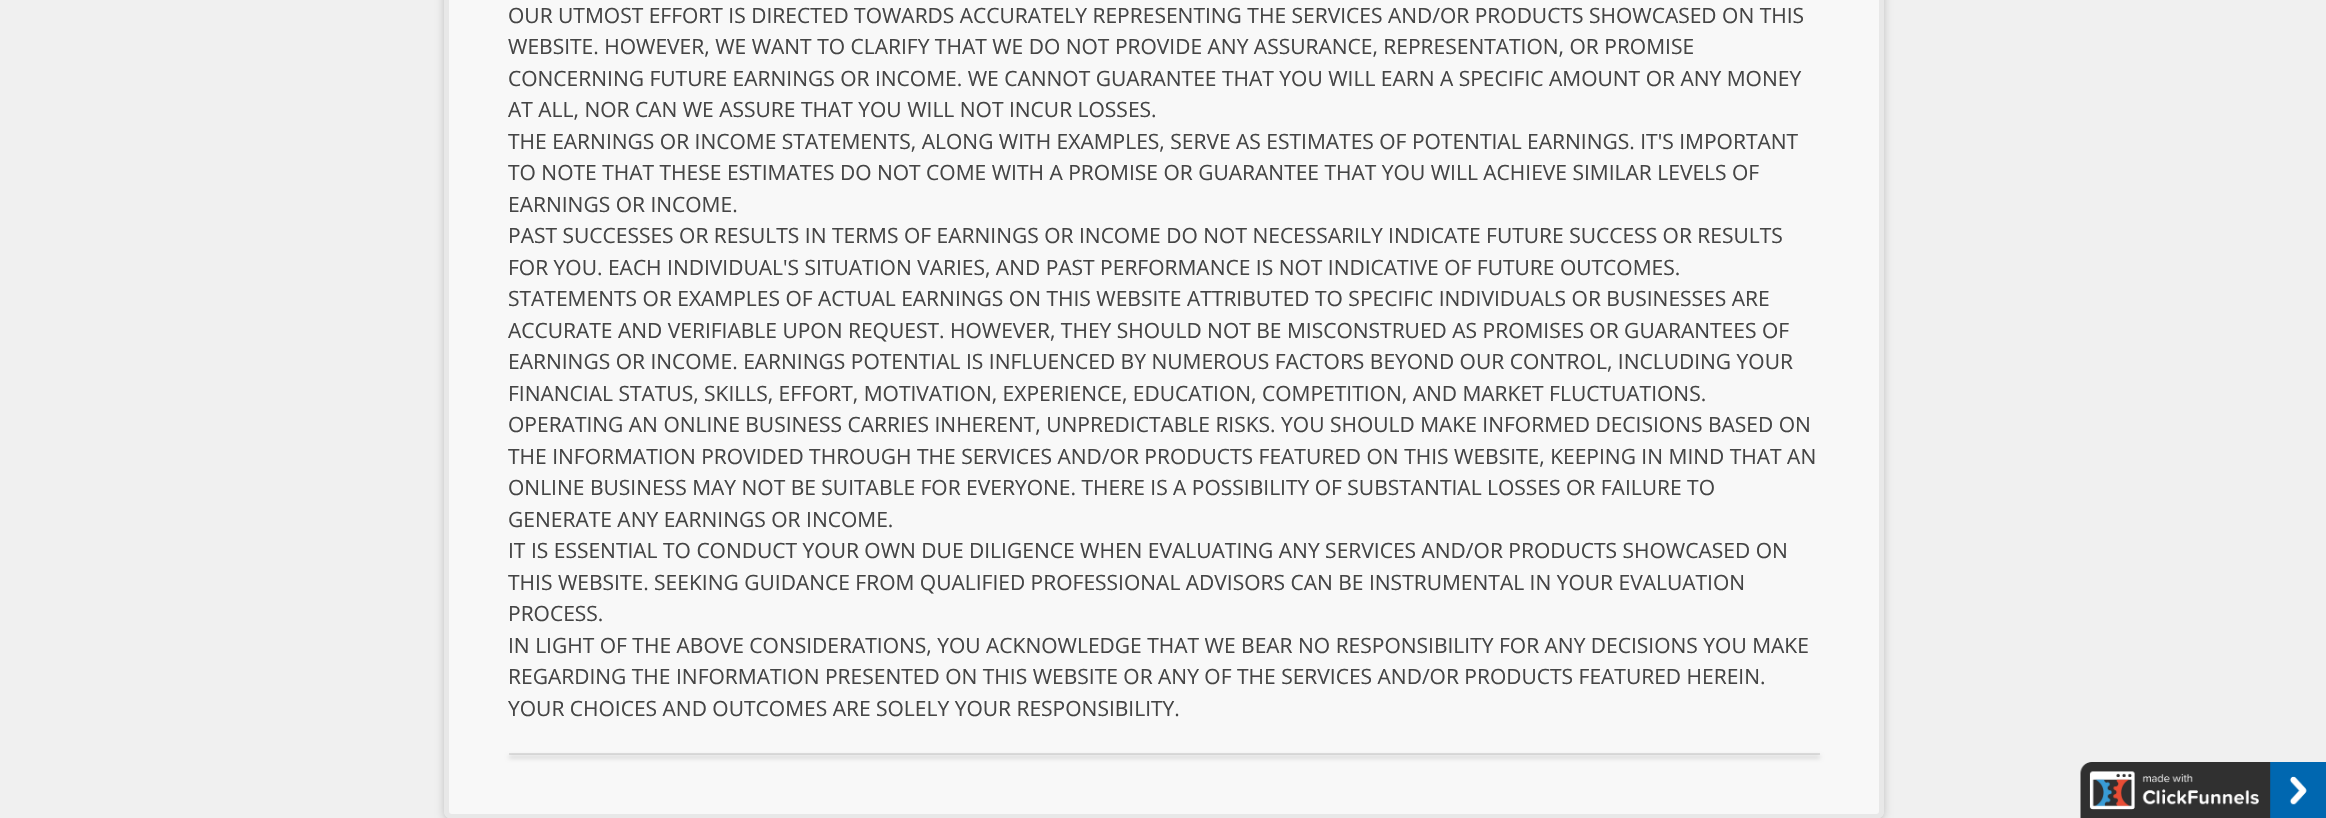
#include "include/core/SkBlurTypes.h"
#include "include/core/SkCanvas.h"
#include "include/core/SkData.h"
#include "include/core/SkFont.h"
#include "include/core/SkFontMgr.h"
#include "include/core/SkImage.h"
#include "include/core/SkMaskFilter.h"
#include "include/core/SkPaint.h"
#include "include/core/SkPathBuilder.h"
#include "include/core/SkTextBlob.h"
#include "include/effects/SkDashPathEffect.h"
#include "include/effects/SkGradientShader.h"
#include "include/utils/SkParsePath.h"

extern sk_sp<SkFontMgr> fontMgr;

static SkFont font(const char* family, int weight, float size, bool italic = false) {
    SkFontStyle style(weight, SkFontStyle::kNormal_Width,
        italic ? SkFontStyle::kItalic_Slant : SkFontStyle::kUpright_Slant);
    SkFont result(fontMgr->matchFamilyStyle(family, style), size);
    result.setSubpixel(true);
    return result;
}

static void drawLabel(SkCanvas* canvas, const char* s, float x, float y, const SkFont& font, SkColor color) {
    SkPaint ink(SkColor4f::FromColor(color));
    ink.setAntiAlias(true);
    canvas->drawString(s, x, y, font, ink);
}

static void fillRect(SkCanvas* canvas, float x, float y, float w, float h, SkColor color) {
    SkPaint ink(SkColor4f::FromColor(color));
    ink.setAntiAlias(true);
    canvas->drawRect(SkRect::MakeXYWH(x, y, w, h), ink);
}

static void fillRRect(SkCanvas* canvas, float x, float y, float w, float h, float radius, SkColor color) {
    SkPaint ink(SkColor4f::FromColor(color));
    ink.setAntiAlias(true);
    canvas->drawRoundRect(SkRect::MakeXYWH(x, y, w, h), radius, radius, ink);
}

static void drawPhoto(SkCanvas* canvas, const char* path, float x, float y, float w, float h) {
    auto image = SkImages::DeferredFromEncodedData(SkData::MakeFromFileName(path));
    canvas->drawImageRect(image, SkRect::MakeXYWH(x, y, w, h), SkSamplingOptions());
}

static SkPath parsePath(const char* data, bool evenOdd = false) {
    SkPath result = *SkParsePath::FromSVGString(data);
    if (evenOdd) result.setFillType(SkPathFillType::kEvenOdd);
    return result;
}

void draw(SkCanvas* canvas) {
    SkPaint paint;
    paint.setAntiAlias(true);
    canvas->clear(0xFFF0F0F0);
    canvas->save();
    canvas->clipPath(parsePath("M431 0H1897V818H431ZM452-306H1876C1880.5-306 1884-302.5 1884-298V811C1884 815.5 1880.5 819 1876 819H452C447.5 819 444 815.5 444 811V-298C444-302.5 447.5-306 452-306Z", true), true);
    paint.setColor(0x33000000);
    paint.setMaskFilter(SkMaskFilter::MakeBlur(kNormal_SkBlurStyle, 4));
    canvas->drawRoundRect(SkRect::MakeXYWH(444, -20, 1440, 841), 8, 8, paint);
    paint.setMaskFilter(nullptr);
    canvas->restore();
    fillRRect(canvas, 444, -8, 1440, 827, 8, 0x8AFFFFFF);
    paint.setStroke(true);
    paint.setStrokeWidth(5);
    paint.setColor(0x142F2F2F);
    canvas->drawRoundRect(SkRect::MakeXYWH(446.5f, -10.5f, 1435, 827), 5.5f, 5.5f, paint);
    SkFont font1 = font("Open Sans", 400, 21);
    drawLabel(canvas, "OUR UTMOST EFFORT IS DIRECTED TOWARDS ACCURATELY REPRESENTING THE SERVICES AND/OR PRODUCTS SHOWCASED ON THIS", 508, 23, font1, 0xFF454545);
    drawLabel(canvas, "WEBSITE. HOWEVER, WE WANT TO CLARIFY THAT WE DO NOT PROVIDE ANY ASSURANCE, REPRESENTATION, OR PROMISE", 508, 54, font1, 0xFF454545);
    drawLabel(canvas, "CONCERNING FUTURE EARNINGS OR INCOME. WE CANNOT GUARANTEE THAT YOU WILL EARN A SPECIFIC AMOUNT OR ANY MONEY", 508, 86, font1, 0xFF454545);
    drawLabel(canvas, "AT ALL, NOR CAN WE ASSURE THAT YOU WILL NOT INCUR LOSSES.", 508, 117, font1, 0xFF454545);
    drawLabel(canvas, "THE EARNINGS OR INCOME STATEMENTS, ALONG WITH EXAMPLES, SERVE AS ESTIMATES OF POTENTIAL EARNINGS. IT'S IMPORTANT", 508, 149, font1, 0xFF454545);
    drawLabel(canvas, "TO NOTE THAT THESE ESTIMATES DO NOT COME WITH A PROMISE OR GUARANTEE THAT YOU WILL ACHIEVE SIMILAR LEVELS OF", 508, 180, font1, 0xFF454545);
    drawLabel(canvas, "EARNINGS OR INCOME.", 508, 212, font1, 0xFF454545);
    drawLabel(canvas, "PAST SUCCESSES OR RESULTS IN TERMS OF EARNINGS OR INCOME DO NOT NECESSARILY INDICATE FUTURE SUCCESS OR RESULTS", 508, 243, font1, 0xFF454545);
    drawLabel(canvas, "FOR YOU. EACH INDIVIDUAL'S SITUATION VARIES, AND PAST PERFORMANCE IS NOT INDICATIVE OF FUTURE OUTCOMES.", 508, 275, font1, 0xFF454545);
    drawLabel(canvas, "STATEMENTS OR EXAMPLES OF ACTUAL EARNINGS ON THIS WEBSITE ATTRIBUTED TO SPECIFIC INDIVIDUALS OR BUSINESSES ARE", 508, 306, font1, 0xFF454545);
    drawLabel(canvas, "ACCURATE AND VERIFIABLE UPON REQUEST. HOWEVER, THEY SHOULD NOT BE MISCONSTRUED AS PROMISES OR GUARANTEES OF", 508, 338, font1, 0xFF454545);
    drawLabel(canvas, "EARNINGS OR INCOME. EARNINGS POTENTIAL IS INFLUENCED BY NUMEROUS FACTORS BEYOND OUR CONTROL, INCLUDING YOUR", 508, 369, font1, 0xFF454545);
    drawLabel(canvas, "FINANCIAL STATUS, SKILLS, EFFORT, MOTIVATION, EXPERIENCE, EDUCATION, COMPETITION, AND MARKET FLUCTUATIONS.", 508, 401, font1, 0xFF454545);
    drawLabel(canvas, "OPERATING AN ONLINE BUSINESS CARRIES INHERENT, UNPREDICTABLE RISKS. YOU SHOULD MAKE INFORMED DECISIONS BASED ON", 508, 432, font1, 0xFF454545);
    drawLabel(canvas, "THE INFORMATION PROVIDED THROUGH THE SERVICES AND/OR PRODUCTS FEATURED ON THIS WEBSITE, KEEPING IN MIND THAT AN", 508, 464, font1, 0xFF454545);
    drawLabel(canvas, "ONLINE BUSINESS MAY NOT BE SUITABLE FOR EVERYONE. THERE IS A POSSIBILITY OF SUBSTANTIAL LOSSES OR FAILURE TO", 508, 495, font1, 0xFF454545);
    drawLabel(canvas, "GENERATE ANY EARNINGS OR INCOME.", 508, 527, font1, 0xFF454545);
    drawLabel(canvas, "IT IS ESSENTIAL TO CONDUCT YOUR OWN DUE DILIGENCE WHEN EVALUATING ANY SERVICES AND/OR PRODUCTS SHOWCASED ON", 508, 558, font1, 0xFF454545);
    drawLabel(canvas, "THIS WEBSITE. SEEKING GUIDANCE FROM QUALIFIED PROFESSIONAL ADVISORS CAN BE INSTRUMENTAL IN YOUR EVALUATION", 508, 590, font1, 0xFF454545);
    drawLabel(canvas, "PROCESS.", 508, 621, font1, 0xFF454545);
    drawLabel(canvas, "IN LIGHT OF THE ABOVE CONSIDERATIONS, YOU ACKNOWLEDGE THAT WE BEAR NO RESPONSIBILITY FOR ANY DECISIONS YOU MAKE", 508, 653, font1, 0xFF454545);
    drawLabel(canvas, "REGARDING THE INFORMATION PRESENTED ON THIS WEBSITE OR ANY OF THE SERVICES AND/OR PRODUCTS FEATURED HEREIN.", 508, 684, font1, 0xFF454545);
    drawLabel(canvas, "YOUR CHOICES AND OUTCOMES ARE SOLELY YOUR RESPONSIBILITY.", 508, 716, font1, 0xFF454545);
    paint.setStroke(false);
    paint.setColor(0x33000000);
    paint.setMaskFilter(SkMaskFilter::MakeBlur(kNormal_SkBlurStyle, 2));
    canvas->drawRect(SkRect::MakeXYWH(509, 756, 1311, 2), paint);
    paint.setMaskFilter(nullptr);
    fillRect(canvas, 509, 753, 1311, 2, 0x1A000000);
    drawPhoto(canvas, "assets/img1.png", 2080, 762, 246, 56);
}
